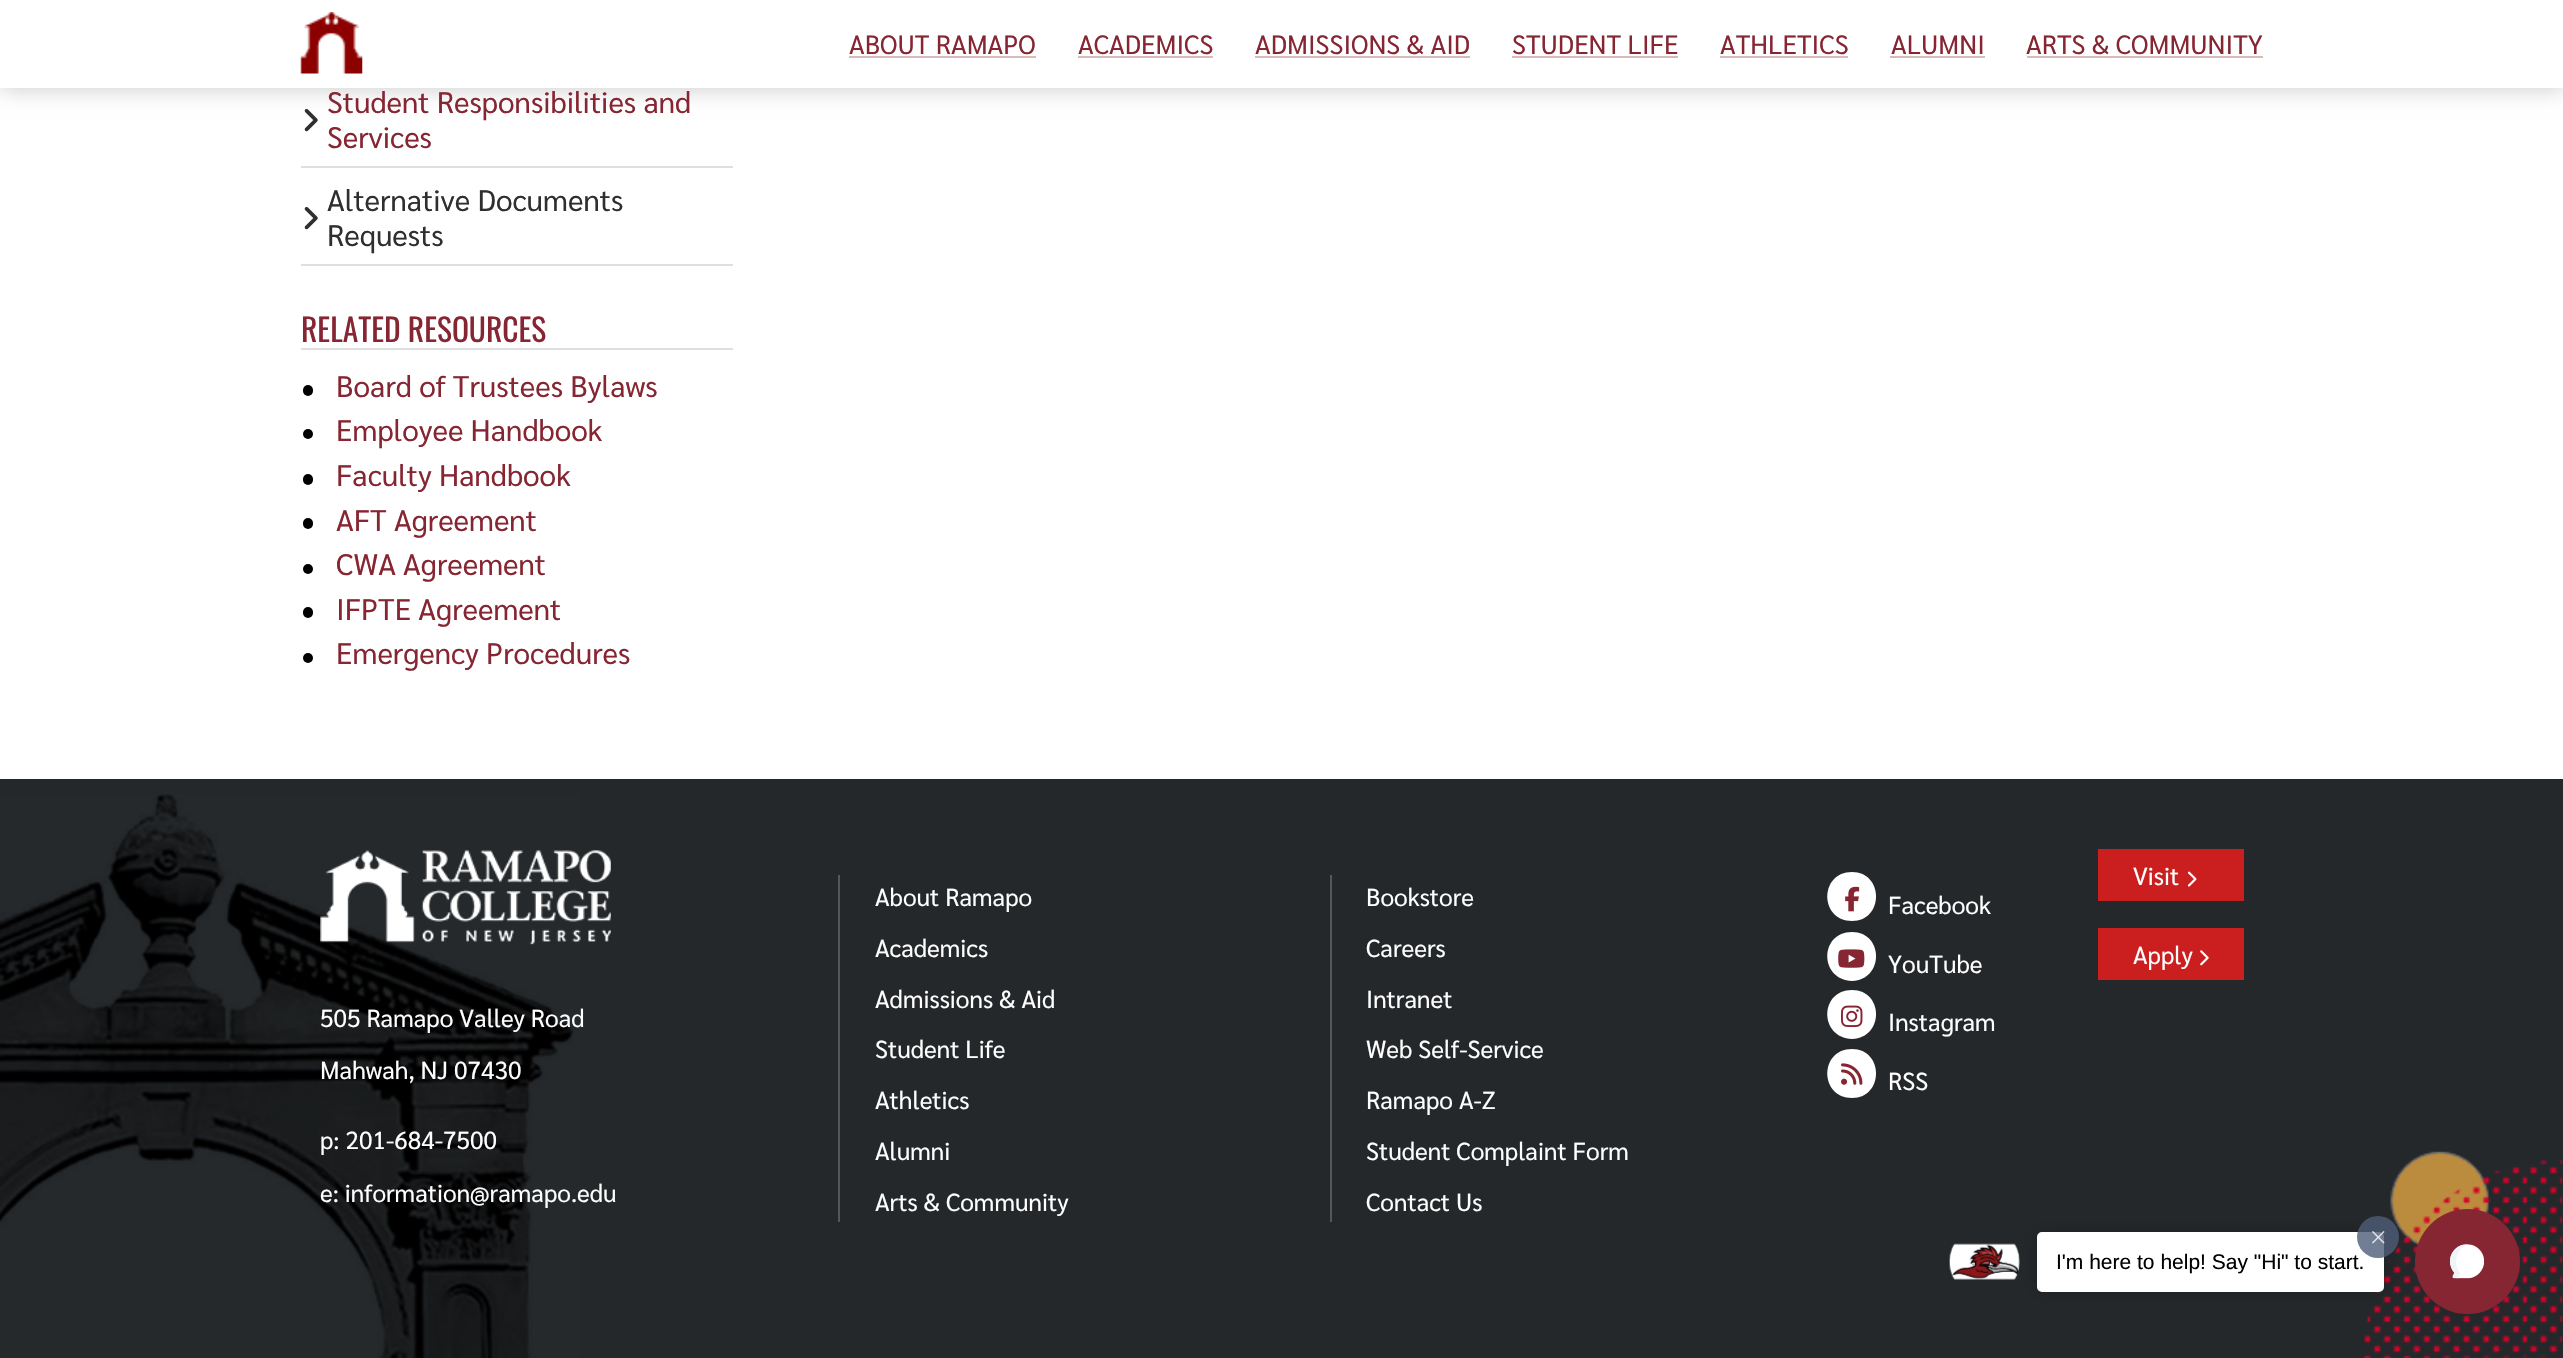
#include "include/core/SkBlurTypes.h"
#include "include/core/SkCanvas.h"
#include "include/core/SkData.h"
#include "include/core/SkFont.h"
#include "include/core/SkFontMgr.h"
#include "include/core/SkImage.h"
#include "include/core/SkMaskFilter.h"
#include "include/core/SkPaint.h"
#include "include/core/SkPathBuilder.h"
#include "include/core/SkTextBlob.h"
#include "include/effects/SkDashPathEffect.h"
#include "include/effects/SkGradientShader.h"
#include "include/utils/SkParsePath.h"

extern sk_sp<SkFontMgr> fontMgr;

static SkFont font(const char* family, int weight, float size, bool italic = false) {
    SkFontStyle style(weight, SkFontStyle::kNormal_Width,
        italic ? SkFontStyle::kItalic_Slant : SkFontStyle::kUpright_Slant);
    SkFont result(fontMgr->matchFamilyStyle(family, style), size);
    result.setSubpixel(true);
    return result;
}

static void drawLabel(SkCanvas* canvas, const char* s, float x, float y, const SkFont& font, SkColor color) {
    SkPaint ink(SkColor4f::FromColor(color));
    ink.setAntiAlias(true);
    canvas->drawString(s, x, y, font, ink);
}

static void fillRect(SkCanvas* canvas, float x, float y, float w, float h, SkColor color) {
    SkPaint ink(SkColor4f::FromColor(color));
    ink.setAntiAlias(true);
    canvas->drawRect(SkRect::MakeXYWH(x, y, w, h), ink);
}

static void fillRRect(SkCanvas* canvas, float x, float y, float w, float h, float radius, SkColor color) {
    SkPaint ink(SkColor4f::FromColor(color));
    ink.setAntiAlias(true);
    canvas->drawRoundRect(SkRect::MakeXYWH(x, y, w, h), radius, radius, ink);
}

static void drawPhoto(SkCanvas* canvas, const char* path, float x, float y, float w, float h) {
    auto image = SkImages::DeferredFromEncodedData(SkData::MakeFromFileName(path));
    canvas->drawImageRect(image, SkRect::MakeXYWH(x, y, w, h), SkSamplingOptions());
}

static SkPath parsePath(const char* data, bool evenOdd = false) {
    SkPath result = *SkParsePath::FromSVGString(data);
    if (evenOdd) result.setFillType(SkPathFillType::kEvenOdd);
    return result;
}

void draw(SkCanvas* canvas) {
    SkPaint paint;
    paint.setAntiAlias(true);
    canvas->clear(0xFFFFFFFF);
    drawPhoto(canvas, "assets/img2.png", 304, 109, 14, 23);
    paint.setColor(0x33000000);
    paint.setMaskFilter(SkMaskFilter::MakeBlur(kNormal_SkBlurStyle, 10.5f));
    canvas->drawRect(SkRect::MakeXYWH(0, 2, 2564, 87), paint);
    paint.setMaskFilter(nullptr);
    fillRect(canvas, 0, 0, 2563, 88, 0xFFFFFFFF);
    drawPhoto(canvas, "assets/img1.png", 300, 12, 63, 62);
    SkFont font1 = font("Sarabun", 400, 26.25f);
    drawLabel(canvas, "ABOUT RAMAPO", 849, 54, font1, 0xFF862633);
    fillRect(canvas, 849, 56, 187, 2, 0xFFD8BCBC);
    drawLabel(canvas, "ACADEMICS", 1078, 54, font1, 0xFF862633);
    fillRect(canvas, 1078, 56, 135, 2, 0xFFD8BCBC);
    drawLabel(canvas, "ADMISSIONS & AID", 1255, 54, font1, 0xFF862633);
    fillRect(canvas, 1255, 56, 215, 2, 0xFFD8BCBC);
    drawLabel(canvas, "STUDENT LIFE", 1512, 54, font1, 0xFF862633);
    fillRect(canvas, 1512, 56, 166, 2, 0xFFD8BCBC);
    drawLabel(canvas, "ATHLETICS", 1720, 54, font1, 0xFF862633);
    fillRect(canvas, 1720, 56, 128, 2, 0xFFD8BCBC);
    drawLabel(canvas, "ALUMNI", 1891, 54, font1, 0xFF862633);
    fillRect(canvas, 1890, 56, 95, 2, 0xFFD8BCBC);
    drawLabel(canvas, "ARTS & COMMUNITY", 2026, 54, font1, 0xFF862633);
    fillRect(canvas, 2027, 56, 236, 2, 0xFFD8BCBC);
    fillRect(canvas, 301, 166, 432, 2, 0xFFDFDFDF);
    SkFont font2 = font("Sarabun", 400, 29.75f);
    drawLabel(canvas, "Student Responsibilities and", 327, 113, font2, 0xFF862633);
    drawLabel(canvas, "Services", 327, 148, font2, 0xFF862633);
    fillRect(canvas, 301, 264, 432, 2, 0xFFDFDFDF);
    drawLabel(canvas, "Alternative Documents", 327, 211, font2, 0xFF2F2F2F);
    drawPhoto(canvas, "assets/img2.png", 304, 207, 14, 23);
    drawLabel(canvas, "Requests", 327, 246, font2, 0xFF2F2F2F);
    fillRect(canvas, 301, 348, 432, 2, 0xFFDFDFDF);
    SkFont font3 = font("Oswald", 400, 31.5f);
    drawLabel(canvas, "RELATED RESOURCES", 301, 342, font3, 0xFF862633);
    fillRRect(canvas, 303, 385, 10, 11, 5, 0xFF000000);
    drawLabel(canvas, "Board of Trustees Bylaws", 336, 397, font2, 0xFF862633);
    paint.setColor(0xFF000000);
    canvas->drawCircle(308, 434, 5, paint);
    drawLabel(canvas, "Employee Handbook", 336, 441, font2, 0xFF862633);
    fillRRect(canvas, 303, 474, 10, 11, 5, 0xFF000000);
    drawLabel(canvas, "Faculty Handbook", 336, 486, font2, 0xFF862633);
    fillRRect(canvas, 303, 518, 10, 11, 5, 0xFF000000);
    drawLabel(canvas, "AFT Agreement", 336, 531, font2, 0xFF862633);
    canvas->drawCircle(308, 569, 5, paint);
    drawLabel(canvas, "CWA Agreement", 336, 575, font2, 0xFF862633);
    fillRRect(canvas, 303, 607, 10, 11, 5, 0xFF000000);
    drawLabel(canvas, "IFPTE Agreement", 336, 620, font2, 0xFF862633);
    canvas->drawCircle(308, 658, 5, paint);
    drawLabel(canvas, "Emergency Procedures", 336, 664, font2, 0xFF862633);
    fillRect(canvas, 0, 779, 2563, 579, 0xFF25282A);
    drawPhoto(canvas, "assets/img3.png", 0, 794, 2563, 564);
    drawPhoto(canvas, "assets/img4.png", 320, 850, 291, 95);
    SkFont font4 = font("Sarabun", 400, 24.5f);
    drawLabel(canvas, "505 Ramapo Valley Road", 320, 1027, font4, 0xFFFFFFFF);
    drawLabel(canvas, "Mahwah, NJ 07430", 320, 1079, font4, 0xFFFFFFFF);
    drawLabel(canvas, "p: 201-684-7500", 320, 1149, font4, 0xFFFFFFFF);
    drawLabel(canvas, "e: information@ramapo.edu", 320, 1202, font4, 0xFFFFFFFF);
    fillRect(canvas, 838, 875, 2, 347, 0xFF545658);
    drawLabel(canvas, "About Ramapo", 875, 906, font4, 0xFFFFFFFF);
    drawLabel(canvas, "Academics", 875, 957, font4, 0xFFFFFFFF);
    drawLabel(canvas, "Admissions & Aid", 875, 1008, font4, 0xFFFFFFFF);
    drawLabel(canvas, "Student Life", 875, 1058, font4, 0xFFFFFFFF);
    drawLabel(canvas, "Athletics", 875, 1109, font4, 0xFFFFFFFF);
    drawLabel(canvas, "Alumni", 875, 1160, font4, 0xFFFFFFFF);
    drawLabel(canvas, "Arts & Community", 875, 1211, font4, 0xFFFFFFFF);
    fillRect(canvas, 1330, 875, 2, 347, 0xFF545658);
    drawLabel(canvas, "Bookstore", 1366, 906, font4, 0xFFFFFFFF);
    drawLabel(canvas, "Careers", 1366, 957, font4, 0xFFFFFFFF);
    drawLabel(canvas, "Intranet", 1366, 1008, font4, 0xFFFFFFFF);
    drawLabel(canvas, "Web Self-Service", 1366, 1058, font4, 0xFFFFFFFF);
    drawLabel(canvas, "Ramapo A-Z", 1366, 1109, font4, 0xFFFFFFFF);
    drawLabel(canvas, "Student Complaint Form", 1366, 1160, font4, 0xFFFFFFFF);
    drawLabel(canvas, "Contact Us", 1366, 1211, font4, 0xFFFFFFFF);
    paint.setColor(0xFFFFFFFF);
    canvas->drawPath(parsePath("M1852 921C1884 921 1884 872 1852 872C1819 872 1819 921 1852 921Z"), paint);
    drawPhoto(canvas, "assets/img5.png", 1845, 886, 15, 26);
    drawLabel(canvas, "Facebook", 1888, 914, font4, 0xFFFFFFFF);
    canvas->drawPath(parsePath("M1852 981C1884 980 1884 932 1852 932C1819 932 1819 980 1852 981Z"), paint);
    drawPhoto(canvas, "assets/img6.png", 1838, 949, 27, 19);
    drawLabel(canvas, "YouTube", 1888, 973, font4, 0xFFFFFFFF);
    canvas->drawPath(parsePath("M1852 1039C1884 1038 1884 990 1852 990C1819 990 1819 1038 1852 1039Z"), paint);
    drawPhoto(canvas, "assets/img7.png", 1841, 1005, 22, 22);
    drawLabel(canvas, "Instagram", 1888, 1031, font4, 0xFFFFFFFF);
    canvas->drawPath(parsePath("M1852 1098C1884 1098 1884 1049 1852 1049C1819 1049 1819 1098 1852 1098Z"), paint);
    drawPhoto(canvas, "assets/img8.png", 1841, 1063, 22, 22);
    drawLabel(canvas, "RSS", 1888, 1090, font4, 0xFFFFFFFF);
    fillRect(canvas, 2098, 849, 146, 52, 0xFFCB1E1E);
    drawLabel(canvas, "Visit", 2133, 885, font4, 0xFFFFFFFF);
    drawPhoto(canvas, "assets/img9.png", 2187, 871, 10, 16);
    fillRect(canvas, 2098, 928, 146, 52, 0xFFCB1E1E);
    drawLabel(canvas, "Apply", 2133, 964, font4, 0xFFFFFFFF);
    drawPhoto(canvas, "assets/img10.png", 2200, 950, 9, 16);
    drawPhoto(canvas, "assets/img11.png", 1949, 1243, 71, 37);
    paint.setColor(0x33000000);
    paint.setMaskFilter(SkMaskFilter::MakeBlur(kNormal_SkBlurStyle, 9));
    canvas->drawRoundRect(SkRect::MakeXYWH(2037, 1232, 347, 60), 5, 5, paint);
    paint.setMaskFilter(nullptr);
    paint.setColor(0xFFFFFFFF);
    canvas->drawRoundRect(SkRect::MakeXYWH(2038, 1233, 345, 58), 4, 4, paint);
    paint.setStroke(true);
    paint.setStrokeWidth(2);
    canvas->drawRoundRect(SkRect::MakeXYWH(2038, 1233, 345, 58), 4, 4, paint);
    SkFont font5 = font("Liberation Sans", 400, 21);
    drawLabel(canvas, "I'm here to help! Say \"Hi\" to start.", 2056, 1269, font5, 0xFF000000);
    paint.setStroke(false);
    paint.setColor(0xCC4E5D77);
    canvas->drawCircle(2378, 1237, 21, paint);
    drawPhoto(canvas, "assets/img12.png", 2372, 1231, 13, 13);
    paint.setColor(0xFF862633);
    canvas->drawCircle(2467.5f, 1261.5f, 52.5f, paint);
    drawPhoto(canvas, "assets/img13.png", 2450, 1244, 34, 35);
}
